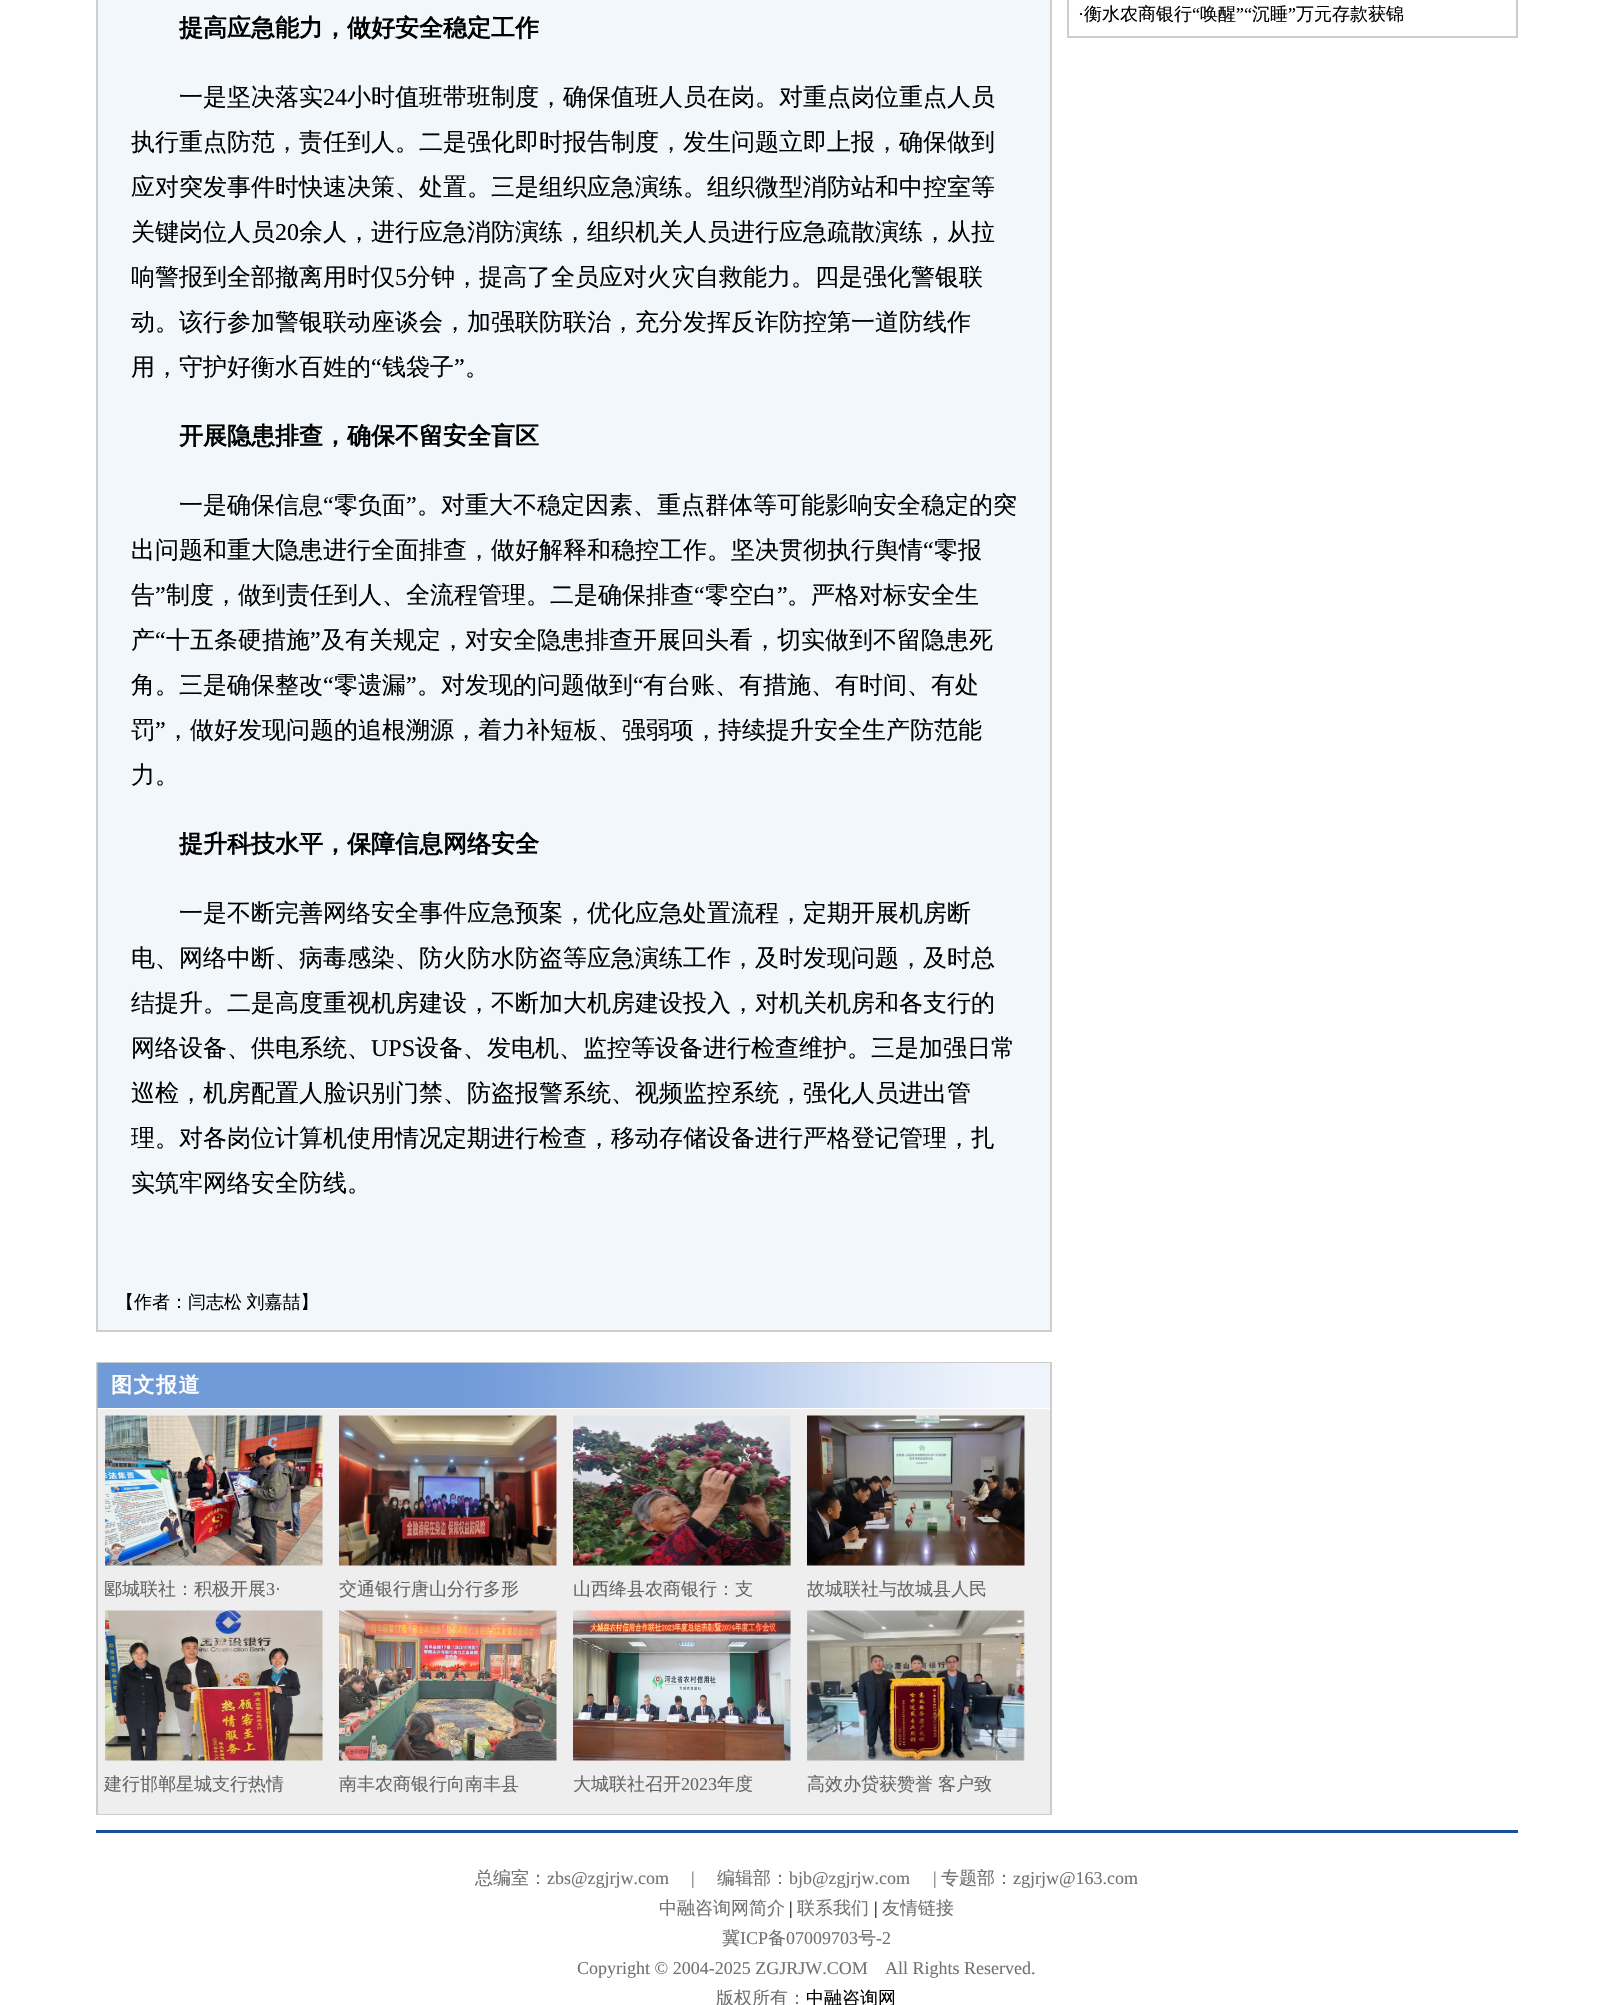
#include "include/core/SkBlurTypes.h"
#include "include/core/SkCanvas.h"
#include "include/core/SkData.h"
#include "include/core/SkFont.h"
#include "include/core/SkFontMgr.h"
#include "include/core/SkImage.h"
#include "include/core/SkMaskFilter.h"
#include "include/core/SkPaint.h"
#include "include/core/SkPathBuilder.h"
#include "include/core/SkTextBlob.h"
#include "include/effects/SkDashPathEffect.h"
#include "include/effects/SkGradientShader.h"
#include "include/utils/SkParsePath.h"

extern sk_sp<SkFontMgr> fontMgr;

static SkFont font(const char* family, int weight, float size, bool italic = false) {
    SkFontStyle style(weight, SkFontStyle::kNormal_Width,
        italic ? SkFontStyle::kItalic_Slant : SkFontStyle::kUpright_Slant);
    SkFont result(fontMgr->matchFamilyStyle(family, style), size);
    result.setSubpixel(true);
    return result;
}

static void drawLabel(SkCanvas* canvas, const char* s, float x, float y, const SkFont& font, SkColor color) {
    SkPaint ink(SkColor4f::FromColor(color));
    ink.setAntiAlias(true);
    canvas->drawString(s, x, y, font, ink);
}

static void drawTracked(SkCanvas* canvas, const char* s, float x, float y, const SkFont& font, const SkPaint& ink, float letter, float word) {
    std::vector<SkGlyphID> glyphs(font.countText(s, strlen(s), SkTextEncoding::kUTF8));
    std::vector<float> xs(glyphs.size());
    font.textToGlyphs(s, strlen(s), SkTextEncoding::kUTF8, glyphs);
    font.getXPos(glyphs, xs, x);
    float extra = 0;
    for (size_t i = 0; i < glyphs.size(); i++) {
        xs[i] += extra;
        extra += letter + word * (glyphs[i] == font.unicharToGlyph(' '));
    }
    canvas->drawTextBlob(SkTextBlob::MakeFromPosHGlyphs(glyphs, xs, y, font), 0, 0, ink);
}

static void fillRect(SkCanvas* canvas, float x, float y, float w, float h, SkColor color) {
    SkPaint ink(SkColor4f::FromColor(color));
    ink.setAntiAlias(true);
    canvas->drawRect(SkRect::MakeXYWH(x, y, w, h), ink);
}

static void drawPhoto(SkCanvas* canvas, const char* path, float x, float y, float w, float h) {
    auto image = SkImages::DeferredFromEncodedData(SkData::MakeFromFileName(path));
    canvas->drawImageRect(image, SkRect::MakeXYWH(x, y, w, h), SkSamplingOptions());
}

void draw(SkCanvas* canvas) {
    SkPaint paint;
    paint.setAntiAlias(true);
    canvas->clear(0xFFFFFFFF);
    paint.setColor(0xFFF2F7FB);
    canvas->drawRect(SkRect::MakeXYWH(97, -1, 954, 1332), paint);
    paint.setStroke(true);
    paint.setStrokeWidth(2);
    paint.setColor(0xFFCDCDCD);
    canvas->drawRect(SkRect::MakeXYWH(97, -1, 954, 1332), paint);
    SkFont font1 = font("WenQuanYi Zen Hei", 700, 24);
    drawLabel(canvas, "提高应急能力，做好安全稳定工作", 179, 36, font1, 0xFF000000);
    SkFont font2 = font("WenQuanYi Zen Hei", 500, 24);
    drawLabel(canvas, "一是坚决落实", 179, 105, font2, 0xFF000000);
    SkFont font3 = font("Liberation Serif", 400, 24);
    drawLabel(canvas, "24", 323, 105, font3, 0xFF000000);
    drawLabel(canvas, "小时值班带班制度，确保值班人员在岗。对重点岗位重点人员", 347, 105, font2, 0xFF000000);
    drawLabel(canvas, "执行重点防范，责任到人。二是强化即时报告制度，发生问题立即上报，确保做到", 131, 150, font2, 0xFF000000);
    drawLabel(canvas, "应对突发事件时快速决策、处置。三是组织应急演练。组织微型消防站和中控室等", 131, 195, font2, 0xFF000000);
    drawLabel(canvas, "关键岗位人员", 131, 240, font2, 0xFF000000);
    drawLabel(canvas, "20", 275, 240, font3, 0xFF000000);
    drawLabel(canvas, "余人，进行应急消防演练，组织机关人员进行应急疏散演练，从拉", 299, 240, font2, 0xFF000000);
    drawLabel(canvas, "响警报到全部撤离用时仅", 131, 285, font2, 0xFF000000);
    drawLabel(canvas, "5", 395, 285, font3, 0xFF000000);
    drawLabel(canvas, "分钟，提高了全员应对火灾自救能力。四是强化警银联", 407, 285, font2, 0xFF000000);
    drawLabel(canvas, "动。该行参加警银联动座谈会，加强联防联治，充分发挥反诈防控第一道防线作", 131, 330, font2, 0xFF000000);
    drawLabel(canvas, "用，守护好衡水百姓的", 131, 375, font2, 0xFF000000);
    drawLabel(canvas, "“", 371, 375, font3, 0xFF000000);
    drawLabel(canvas, "钱袋子", 382, 375, font2, 0xFF000000);
    drawLabel(canvas, "”", 454, 375, font3, 0xFF000000);
    drawLabel(canvas, "。", 465, 375, font2, 0xFF000000);
    drawLabel(canvas, "开展隐患排查，确保不留安全盲区", 179, 444, font1, 0xFF000000);
    drawLabel(canvas, "一是确保信息", 179, 513, font2, 0xFF000000);
    drawLabel(canvas, "“", 323, 513, font3, 0xFF000000);
    drawLabel(canvas, "零负面", 334, 513, font2, 0xFF000000);
    drawLabel(canvas, "”", 406, 513, font3, 0xFF000000);
    drawLabel(canvas, "。对重大不稳定因素、重点群体等可能影响安全稳定的突", 417, 513, font2, 0xFF000000);
    drawLabel(canvas, "出问题和重大隐患进行全面排查，做好解释和稳控工作。坚决贯彻执行舆情", 131, 558, font2, 0xFF000000);
    drawLabel(canvas, "“", 923, 558, font3, 0xFF000000);
    drawLabel(canvas, "零报", 934, 558, font2, 0xFF000000);
    drawLabel(canvas, "告", 131, 603, font2, 0xFF000000);
    drawLabel(canvas, "”", 155, 603, font3, 0xFF000000);
    drawLabel(canvas, "制度，做到责任到人、全流程管理。二是确保排查", 166, 603, font2, 0xFF000000);
    drawLabel(canvas, "“", 694, 603, font3, 0xFF000000);
    drawLabel(canvas, "零空白", 705, 603, font2, 0xFF000000);
    drawLabel(canvas, "”", 777, 603, font3, 0xFF000000);
    drawLabel(canvas, "。严格对标安全生", 787, 603, font2, 0xFF000000);
    drawLabel(canvas, "产", 131, 648, font2, 0xFF000000);
    drawLabel(canvas, "“", 155, 648, font3, 0xFF000000);
    drawLabel(canvas, "十五条硬措施", 166, 648, font2, 0xFF000000);
    drawLabel(canvas, "”", 310, 648, font3, 0xFF000000);
    drawLabel(canvas, "及有关规定，对安全隐患排查开展回头看，切实做到不留隐患死", 321, 648, font2, 0xFF000000);
    drawLabel(canvas, "角。三是确保整改", 131, 693, font2, 0xFF000000);
    drawLabel(canvas, "“", 323, 693, font3, 0xFF000000);
    drawLabel(canvas, "零遗漏", 334, 693, font2, 0xFF000000);
    drawLabel(canvas, "”", 406, 693, font3, 0xFF000000);
    drawLabel(canvas, "。对发现的问题做到", 417, 693, font2, 0xFF000000);
    drawLabel(canvas, "“", 633, 693, font3, 0xFF000000);
    drawLabel(canvas, "有台账、有措施、有时间、有处", 643, 693, font2, 0xFF000000);
    drawLabel(canvas, "罚", 131, 738, font2, 0xFF000000);
    drawLabel(canvas, "”", 155, 738, font3, 0xFF000000);
    drawLabel(canvas, "，做好发现问题的追根溯源，着力补短板、强弱项，持续提升安全生产防范能", 166, 738, font2, 0xFF000000);
    drawLabel(canvas, "力。", 131, 783, font2, 0xFF000000);
    drawLabel(canvas, "提升科技水平，保障信息网络安全", 179, 852, font1, 0xFF000000);
    drawLabel(canvas, "一是不断完善网络安全事件应急预案，优化应急处置流程，定期开展机房断", 179, 921, font2, 0xFF000000);
    drawLabel(canvas, "电、网络中断、病毒感染、防火防水防盗等应急演练工作，及时发现问题，及时总", 131, 966, font2, 0xFF000000);
    drawLabel(canvas, "结提升。二是高度重视机房建设，不断加大机房建设投入，对机关机房和各支行的", 131, 1011, font2, 0xFF000000);
    drawLabel(canvas, "网络设备、供电系统、", 131, 1056, font2, 0xFF000000);
    drawLabel(canvas, "UPS", 371, 1056, font3, 0xFF000000);
    drawLabel(canvas, "设备、发电机、监控等设备进行检查维护。三是加强日常", 415, 1056, font2, 0xFF000000);
    drawLabel(canvas, "巡检，机房配置人脸识别门禁、防盗报警系统、视频监控系统，强化人员进出管", 131, 1101, font2, 0xFF000000);
    drawLabel(canvas, "理。对各岗位计算机使用情况定期进行检查，移动存储设备进行严格登记管理，扎", 131, 1146, font2, 0xFF000000);
    drawLabel(canvas, "实筑牢网络安全防线。", 131, 1191, font2, 0xFF000000);
    SkFont font4 = font("WenQuanYi Zen Hei", 500, 18);
    paint.setStroke(false);
    paint.setColor(0xFF000000);
    drawTracked(canvas, "【作者：闫志松 刘嘉喆】", 116, 1308, font4, paint, 0, -1);
    paint.setStroke(true);
    paint.setColor(0xFFCDCDCD);
    canvas->drawRect(SkRect::MakeXYWH(97, 1363, 954, 451), paint);
    drawPhoto(canvas, "assets/img1.png", 97, 1363, 953, 45);
    SkFont font5 = font("WenQuanYi Zen Hei", 700, 21);
    paint.setStroke(false);
    paint.setColor(0xFFFFFFFF);
    drawTracked(canvas, "图文报道", 111, 1392, font5, paint, 1.5f, 0);
    fillRect(canvas, 98, 1409, 952, 405, 0xFFEEEEEE);
    drawPhoto(canvas, "assets/img2.png", 105, 1415, 218, 151);
    drawLabel(canvas, "郾城联社：积极开展", 104, 1595, font4, 0xFF666666);
    SkFont font6 = font("Liberation Serif", 400, 18);
    drawLabel(canvas, "3·", 266, 1595, font6, 0xFF666666);
    drawPhoto(canvas, "assets/img3.png", 339, 1415, 218, 151);
    drawLabel(canvas, "交通银行唐山分行多形", 339, 1595, font4, 0xFF666666);
    drawPhoto(canvas, "assets/img4.png", 573, 1415, 218, 151);
    drawLabel(canvas, "山西绛县农商银行：支", 573, 1595, font4, 0xFF666666);
    drawPhoto(canvas, "assets/img5.png", 807, 1415, 218, 151);
    drawLabel(canvas, "故城联社与故城县人民", 807, 1595, font4, 0xFF666666);
    drawPhoto(canvas, "assets/img6.png", 105, 1610, 218, 151);
    drawLabel(canvas, "建行邯郸星城支行热情", 104, 1790, font4, 0xFF666666);
    drawPhoto(canvas, "assets/img7.png", 339, 1610, 218, 151);
    drawLabel(canvas, "南丰农商银行向南丰县", 339, 1790, font4, 0xFF666666);
    drawPhoto(canvas, "assets/img8.png", 573, 1610, 218, 151);
    drawLabel(canvas, "大城联社召开", 573, 1790, font4, 0xFF666666);
    drawLabel(canvas, "2023", 681, 1790, font6, 0xFF666666);
    drawLabel(canvas, "年度", 717, 1790, font4, 0xFF666666);
    drawPhoto(canvas, "assets/img9.png", 807, 1610, 218, 151);
    drawLabel(canvas, "高效办贷获赞誉", 807, 1790, font4, 0xFF666666);
    drawLabel(canvas, "客户致", 938, 1790, font4, 0xFF666666);
    paint.setStroke(true);
    paint.setColor(0xFFCDCDCD);
    canvas->drawRect(SkRect::MakeXYWH(1068, -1, 449, 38), paint);
    drawLabel(canvas, "衡水农商银行", 1084, 20, font4, 0xFF000000);
    drawLabel(canvas, "“", 1192, 20, font6, 0xFF000000);
    drawLabel(canvas, "唤醒", 1200, 20, font4, 0xFF000000);
    drawLabel(canvas, "”“", 1236, 20, font6, 0xFF000000);
    drawLabel(canvas, "沉睡", 1252, 20, font4, 0xFF000000);
    drawLabel(canvas, "”", 1288, 20, font6, 0xFF000000);
    drawLabel(canvas, "万元存款获锦", 1296, 20, font4, 0xFF000000);
    drawLabel(canvas, "·", 1078, 20, font6, 0xFF000000);
    fillRect(canvas, 96, 1830, 1422, 3, 0xFF1A519B);
    drawLabel(canvas, "总编室：", 475, 1884, font4, 0xFF717171);
    drawLabel(canvas, "zbs@zgjrjw.com", 547, 1884, font6, 0xFF717171);
    drawLabel(canvas, "|", 691, 1884, font6, 0xFF717171);
    drawLabel(canvas, "编辑部：", 717, 1884, font4, 0xFF717171);
    drawLabel(canvas, "bjb@zgjrjw.com", 789, 1884, font6, 0xFF717171);
    drawLabel(canvas, "|", 933, 1884, font6, 0xFF717171);
    drawLabel(canvas, "专题部：", 941, 1884, font4, 0xFF717171);
    drawLabel(canvas, "zgjrjw@163.com", 1013, 1884, font6, 0xFF717171);
    drawLabel(canvas, "中融咨询网简介", 659, 1914, font4, 0xFF717171);
    drawLabel(canvas, "|", 789, 1914, font6, 0xFF000000);
    drawLabel(canvas, "联系我们", 797, 1914, font4, 0xFF717171);
    drawLabel(canvas, "|", 874, 1914, font6, 0xFF000000);
    drawLabel(canvas, "友情链接", 882, 1914, font4, 0xFF717171);
    drawLabel(canvas, "冀", 722, 1944, font4, 0xFF717171);
    drawLabel(canvas, "ICP", 740, 1944, font6, 0xFF717171);
    drawLabel(canvas, "备", 768, 1944, font4, 0xFF717171);
    drawLabel(canvas, "07009703", 786, 1944, font6, 0xFF717171);
    drawLabel(canvas, "号", 858, 1944, font4, 0xFF717171);
    drawLabel(canvas, "-2", 876, 1944, font6, 0xFF717171);
    drawLabel(canvas, "Copyright © 2004-2025 ZGJRJW.COM", 577, 1974, font6, 0xFF717171);
    drawLabel(canvas, "All Rights Reserved.", 885, 1974, font6, 0xFF717171);
    drawLabel(canvas, "版权所有：", 716, 2004, font4, 0xFF717171);
    drawLabel(canvas, "中融咨询网", 806, 2004, font4, 0xFF000000);
}
